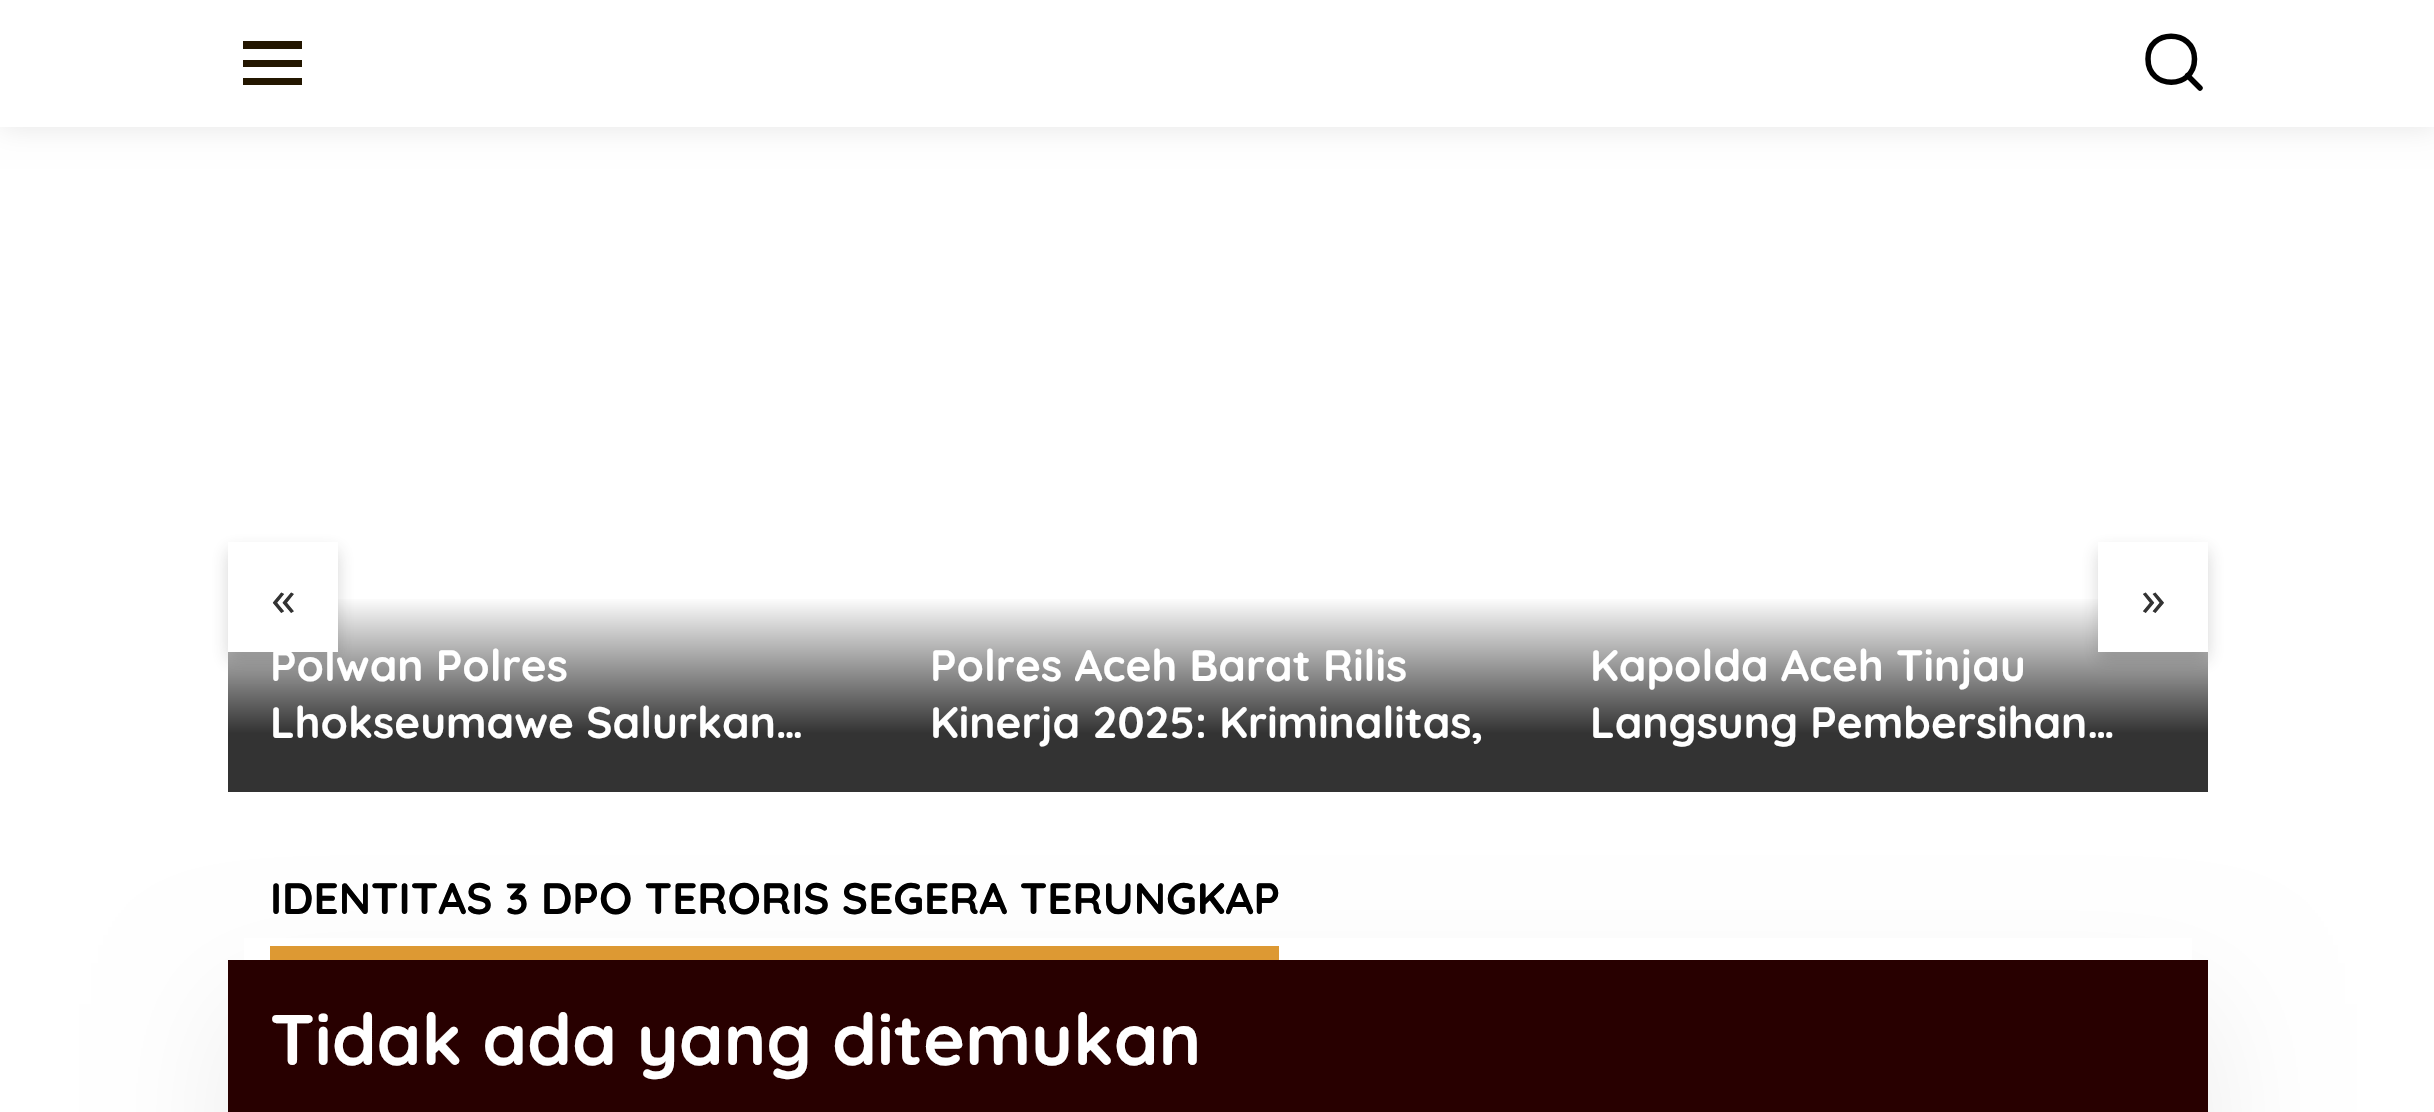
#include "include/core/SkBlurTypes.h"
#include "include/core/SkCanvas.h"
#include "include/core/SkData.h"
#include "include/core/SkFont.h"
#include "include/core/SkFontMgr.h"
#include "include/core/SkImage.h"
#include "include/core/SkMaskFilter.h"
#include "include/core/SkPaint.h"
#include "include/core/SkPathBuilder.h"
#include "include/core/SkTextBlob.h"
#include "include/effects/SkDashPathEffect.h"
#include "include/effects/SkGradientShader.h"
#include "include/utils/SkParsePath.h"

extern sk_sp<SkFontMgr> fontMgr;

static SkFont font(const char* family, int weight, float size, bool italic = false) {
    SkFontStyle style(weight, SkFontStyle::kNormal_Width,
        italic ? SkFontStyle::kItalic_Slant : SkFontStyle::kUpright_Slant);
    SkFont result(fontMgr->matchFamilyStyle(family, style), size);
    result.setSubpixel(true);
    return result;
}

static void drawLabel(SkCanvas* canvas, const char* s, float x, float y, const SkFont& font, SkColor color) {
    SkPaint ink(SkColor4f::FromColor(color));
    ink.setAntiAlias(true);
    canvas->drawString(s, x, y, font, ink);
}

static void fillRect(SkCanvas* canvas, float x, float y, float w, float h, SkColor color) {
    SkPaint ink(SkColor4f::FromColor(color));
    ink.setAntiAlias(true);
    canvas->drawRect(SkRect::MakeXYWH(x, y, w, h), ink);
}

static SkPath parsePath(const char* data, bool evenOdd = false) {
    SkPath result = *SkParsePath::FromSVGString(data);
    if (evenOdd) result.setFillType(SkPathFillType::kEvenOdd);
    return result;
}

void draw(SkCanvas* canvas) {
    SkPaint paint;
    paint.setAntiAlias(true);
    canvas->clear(0xFFFFFFFF);
    paint.setColor(0x1A000000);
    paint.setMaskFilter(SkMaskFilter::MakeBlur(kNormal_SkBlurStyle, 14));
    canvas->drawRect(SkRect::MakeXYWH(0, 0, 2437, 127), paint);
    paint.setMaskFilter(nullptr);
    fillRect(canvas, 0, 0, 2434, 127, 0xFFFFFFFF);
    paint.setColor(0xFF231600);
    canvas->drawPath(parsePath("M243 41H302V49H243ZM243 60H302V67H243ZM243 78H302V85H243Z"), paint);
    paint.setStroke(true);
    paint.setStrokeWidth(5.5f);
    paint.setStrokeCap(SkPaint::kRound_Cap);
    paint.setColor(0xFF000000);
    canvas->drawPath(parsePath("M2200 88L2187.5 75.5M2194.5 59C2194.5 90 2148 90 2148 59C2147.5 28.5 2194.5 28.5 2194.5 59Z"), paint);
    paint.setStroke(false);
    {
        const SkColor colors[] = {0xFFFFFFFF, 0xFF333333};
        const float stops[] = {0, 0.7f};
        const SkPoint ends[] = {{558, 597}, {558, 792}};
        paint.setShader(SkGradientShader::MakeLinear(ends, colors, stops, 2, SkTileMode::kClamp));
        paint.setAlpha(255);
    }
    canvas->drawRect(SkRect::MakeXYWH(228, 599, 660, 193), paint);
    paint.setShader(nullptr);
    paint.setColor(0x33333333);
    paint.setMaskFilter(SkMaskFilter::MakeBlur(kNormal_SkBlurStyle, 8));
    canvas->drawRect(SkRect::MakeXYWH(228, 550, 110, 110), paint);
    paint.setMaskFilter(nullptr);
    fillRect(canvas, 228, 542, 110, 110, 0xFFFFFFFF);
    SkFont font1 = font("Open Sans", 400, 50);
    drawLabel(canvas, "«", 271, 616, font1, 0xFF333333);
    {
        const SkColor colors[] = {0xFFFFFFFF, 0xFF333333};
        const float stops[] = {0, 0.7f};
        const SkPoint ends[] = {{1878, 597}, {1878, 792}};
        paint.setShader(SkGradientShader::MakeLinear(ends, colors, stops, 2, SkTileMode::kClamp));
        paint.setAlpha(255);
    }
    canvas->drawRect(SkRect::MakeXYWH(1548, 599, 660, 193), paint);
    paint.setShader(nullptr);
    paint.setColor(0x33333333);
    paint.setMaskFilter(SkMaskFilter::MakeBlur(kNormal_SkBlurStyle, 8));
    canvas->drawRect(SkRect::MakeXYWH(2098, 550, 110, 110), paint);
    paint.setMaskFilter(nullptr);
    fillRect(canvas, 2098, 542, 110, 110, 0xFFFFFFFF);
    drawLabel(canvas, "»", 2141, 616, font1, 0xFF333333);
    SkFont font2 = font("Quicksand", 700, 44);
    drawLabel(canvas, "Polwan Polres", 270, 681, font2, 0xFFFFFFFF);
    drawLabel(canvas, "Lhokseumawe Salurkan…", 270, 738, font2, 0xFFFFFFFF);
    {
        const SkColor colors[] = {0xFFFFFFFF, 0xFF333333};
        const float stops[] = {0, 0.7f};
        const SkPoint ends[] = {{1218, 597}, {1218, 792}};
        paint.setShader(SkGradientShader::MakeLinear(ends, colors, stops, 2, SkTileMode::kClamp));
        paint.setAlpha(255);
    }
    canvas->drawRect(SkRect::MakeXYWH(888, 599, 660, 193), paint);
    drawLabel(canvas, "Polres Aceh Barat Rilis", 930, 681, font2, 0xFFFFFFFF);
    drawLabel(canvas, "Kinerja 2025: Kriminalitas,", 930, 738, font2, 0xFFFFFFFF);
    drawLabel(canvas, "Kapolda Aceh Tinjau", 1590, 681, font2, 0xFFFFFFFF);
    drawLabel(canvas, "Langsung Pembersihan…", 1590, 738, font2, 0xFFFFFFFF);
    paint.setShader(nullptr);
    paint.setColor(0x12000000);
    paint.setMaskFilter(SkMaskFilter::MakeBlur(kNormal_SkBlurStyle, 62));
    canvas->drawRect(SkRect::MakeXYWH(228, 1004, 1980, 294), paint);
    paint.setMaskFilter(nullptr);
    fillRect(canvas, 244, 938, 1948, 22, 0xFFFFFFFF);
    fillRect(canvas, 270, 946, 1009, 14, 0xFFDD9933);
    drawLabel(canvas, "IDENTITAS 3 DPO TERORIS SEGERA TERUNGKAP", 270, 914, font2, 0xFF000000);
    fillRect(canvas, 228, 960, 1980, 152, 0xFF280000);
    SkFont font3 = font("Quicksand", 700, 71.5f);
    drawLabel(canvas, "Tidak ada yang ditemukan", 270, 1065, font3, 0xFFFFFFFF);
}
